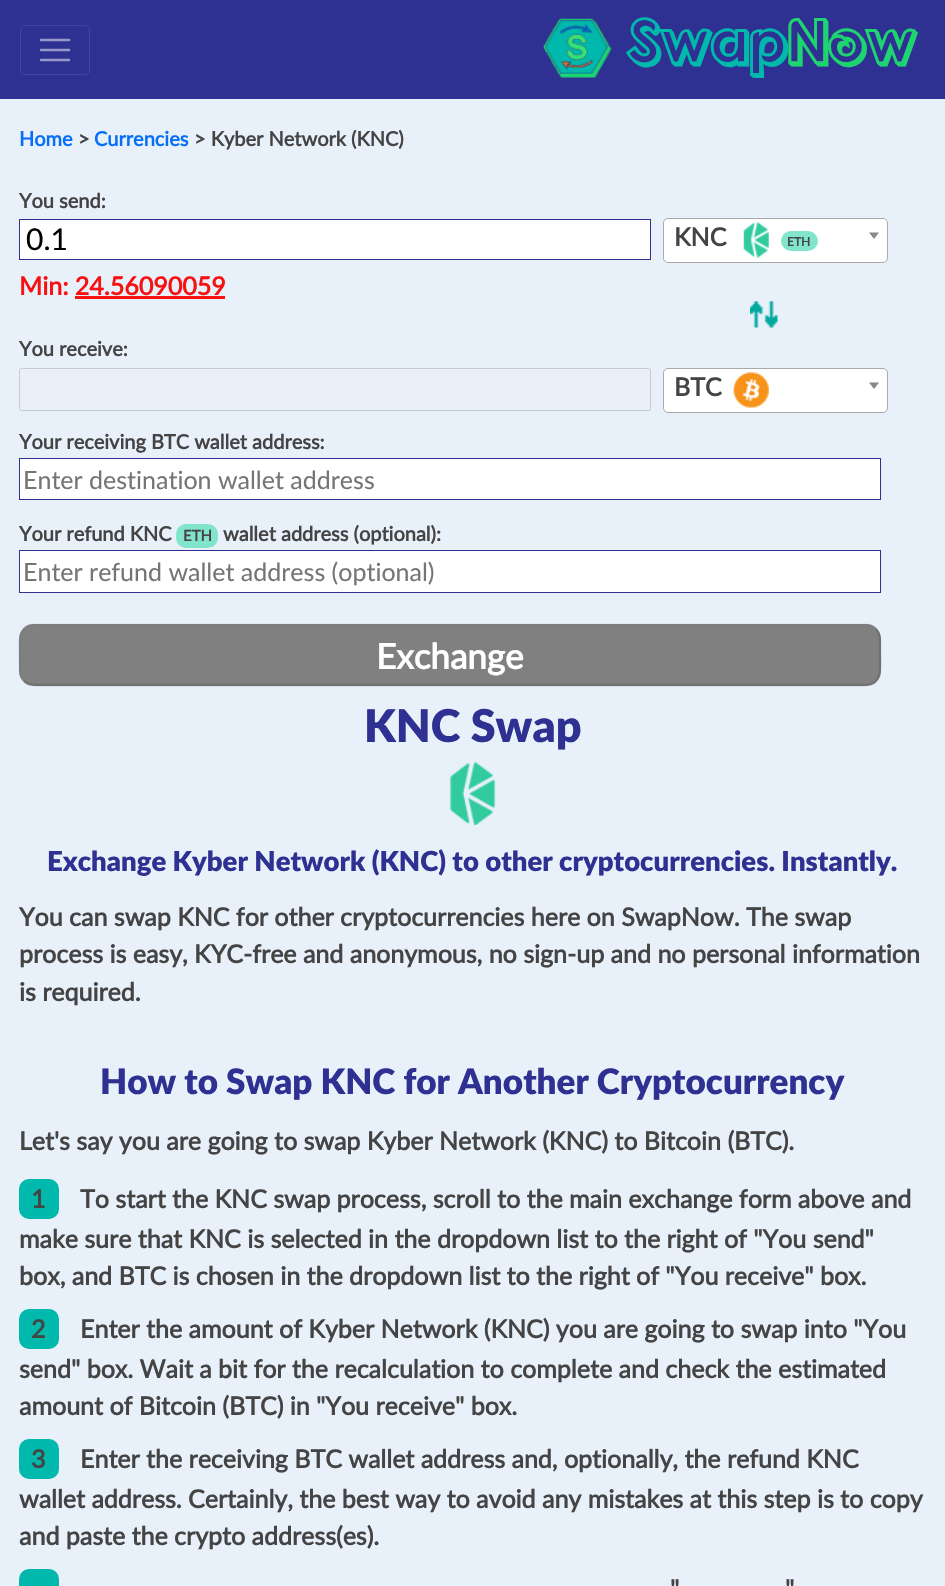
#include "include/core/SkBlurTypes.h"
#include "include/core/SkCanvas.h"
#include "include/core/SkData.h"
#include "include/core/SkFont.h"
#include "include/core/SkFontMgr.h"
#include "include/core/SkImage.h"
#include "include/core/SkMaskFilter.h"
#include "include/core/SkPaint.h"
#include "include/core/SkPathBuilder.h"
#include "include/core/SkTextBlob.h"
#include "include/effects/SkDashPathEffect.h"
#include "include/effects/SkGradientShader.h"
#include "include/utils/SkParsePath.h"

extern sk_sp<SkFontMgr> fontMgr;

static SkFont font(const char* family, int weight, float size, bool italic = false) {
    SkFontStyle style(weight, SkFontStyle::kNormal_Width,
        italic ? SkFontStyle::kItalic_Slant : SkFontStyle::kUpright_Slant);
    SkFont result(fontMgr->matchFamilyStyle(family, style), size);
    result.setSubpixel(true);
    return result;
}

static void drawLabel(SkCanvas* canvas, const char* s, float x, float y, const SkFont& font, SkColor color) {
    SkPaint ink(SkColor4f::FromColor(color));
    ink.setAntiAlias(true);
    canvas->drawString(s, x, y, font, ink);
}

static void fillRect(SkCanvas* canvas, float x, float y, float w, float h, SkColor color) {
    SkPaint ink(SkColor4f::FromColor(color));
    ink.setAntiAlias(true);
    canvas->drawRect(SkRect::MakeXYWH(x, y, w, h), ink);
}

static void fillRRect(SkCanvas* canvas, float x, float y, float w, float h, float radius, SkColor color) {
    SkPaint ink(SkColor4f::FromColor(color));
    ink.setAntiAlias(true);
    canvas->drawRoundRect(SkRect::MakeXYWH(x, y, w, h), radius, radius, ink);
}

static void drawPhoto(SkCanvas* canvas, const char* path, float x, float y, float w, float h) {
    auto image = SkImages::DeferredFromEncodedData(SkData::MakeFromFileName(path));
    canvas->drawImageRect(image, SkRect::MakeXYWH(x, y, w, h), SkSamplingOptions());
}

static SkPath parsePath(const char* data, bool evenOdd = false) {
    SkPath result = *SkParsePath::FromSVGString(data);
    if (evenOdd) result.setFillType(SkPathFillType::kEvenOdd);
    return result;
}

void draw(SkCanvas* canvas) {
    SkPaint paint;
    paint.setAntiAlias(true);
    canvas->clear(0xFFE8F0FA);
    fillRect(canvas, 0, 0, 945, 99, 0xFF2E3192);
    paint.setStroke(true);
    paint.setStrokeWidth(1);
    paint.setColor(0xFF43469D);
    canvas->drawRoundRect(SkRect::MakeXYWH(20.5f, 25.5f, 69, 49), 4.5f, 4.5f, paint);
    paint.setStrokeWidth(2.5f);
    paint.setStrokeCap(SkPaint::kRound_Cap);
    paint.setColor(0xFF9798C9);
    canvas->drawPath(parsePath("M41 40H69M41 50H69M41 60H69"), paint);
    drawPhoto(canvas, "assets/img1.png", 543, 18, 69, 60);
    SkFont font1 = font("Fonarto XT", 700, 60);
    drawLabel(canvas, "Swap", 625, 63, font1, 0xFF00B8AB);
    drawLabel(canvas, "Now", 786, 63, font1, 0xFF1ED470);
    SkFont font2 = font("Lato", 700, 20);
    drawLabel(canvas, "Home", 19, 146, font2, 0xFF076FF7);
    drawLabel(canvas, ">", 78, 146, font2, 0xFF444444);
    drawLabel(canvas, "Currencies", 94, 146, font2, 0xFF076FF7);
    drawLabel(canvas, "> Kyber Network (KNC)", 194, 146, font2, 0xFF444444);
    drawLabel(canvas, "You send:", 19, 208, font2, 0xFF444444);
    paint.setStroke(false);
    paint.setColor(0xFFFFFFFF);
    canvas->drawRect(SkRect::MakeXYWH(19.5f, 219.5f, 631, 40), paint);
    paint.setStroke(true);
    paint.setStrokeWidth(1);
    paint.setStrokeCap(SkPaint::kButt_Cap);
    paint.setColor(0xFF2E3192);
    canvas->drawRect(SkRect::MakeXYWH(19.5f, 219.5f, 631, 40), paint);
    SkFont font3 = font("Lato", 400, 30);
    drawLabel(canvas, "0.1", 26, 250, font3, 0xFF000000);
    paint.setStroke(false);
    paint.setColor(0xFFFFFFFF);
    canvas->drawRoundRect(SkRect::MakeXYWH(663.5f, 218.5f, 224, 44), 4.5f, 4.5f, paint);
    paint.setStroke(true);
    paint.setColor(0xFFAAAAAA);
    canvas->drawRoundRect(SkRect::MakeXYWH(663.5f, 218.5f, 224, 44), 4.5f, 4.5f, paint);
    SkFont font4 = font("Lato", 700, 25);
    drawLabel(canvas, "KNC", 674, 246, font4, 0xFF444444);
    drawPhoto(canvas, "assets/img2.png", 743, 222, 26, 36);
    fillRRect(canvas, 781, 231, 37, 20, 10, 0xFF81E5CC);
    SkFont font5 = font("Lato", 700, 12);
    drawLabel(canvas, "ETH", 787, 246, font5, 0xFF444444);
    paint.setStroke(false);
    paint.setColor(0xFF888888);
    canvas->drawPath(parsePath("M869 232.5H879L874 239Z"), paint);
    drawLabel(canvas, "Min: 24.56090059", 19, 295, font4, 0xFFF71212);
    fillRect(canvas, 75, 296, 150, 3, 0xFFF71212);
    drawPhoto(canvas, "assets/img3.png", 750, 301, 28, 27);
    drawLabel(canvas, "You receive:", 19, 356, font2, 0xFF444444);
    paint.setColor(0xFFEAF0F7);
    canvas->drawRoundRect(SkRect::MakeXYWH(19.5f, 368.5f, 631, 42), 2, 2, paint);
    paint.setStroke(true);
    paint.setColor(0xFFC7CBD0);
    canvas->drawRoundRect(SkRect::MakeXYWH(19.5f, 368.5f, 631, 42), 2, 2, paint);
    paint.setStroke(false);
    paint.setColor(0xFFFFFFFF);
    canvas->drawRoundRect(SkRect::MakeXYWH(663.5f, 368.5f, 224, 44), 4.5f, 4.5f, paint);
    paint.setStroke(true);
    paint.setColor(0xFFAAAAAA);
    canvas->drawRoundRect(SkRect::MakeXYWH(663.5f, 368.5f, 224, 44), 4.5f, 4.5f, paint);
    drawLabel(canvas, "BTC", 674, 396, font4, 0xFF444444);
    drawPhoto(canvas, "assets/img4.png", 733, 372, 36, 36);
    paint.setStroke(false);
    paint.setColor(0xFF888888);
    canvas->drawPath(parsePath("M869 382.5H879L874 389Z"), paint);
    drawLabel(canvas, "Your receiving BTC wallet address:", 19, 449, font2, 0xFF444444);
    paint.setColor(0xFFFFFFFF);
    canvas->drawRect(SkRect::MakeXYWH(19.5f, 458.5f, 861, 41), paint);
    paint.setStroke(true);
    paint.setColor(0xFF2E3192);
    canvas->drawRect(SkRect::MakeXYWH(19.5f, 458.5f, 861, 41), paint);
    SkFont font6 = font("Lato", 400, 25);
    drawLabel(canvas, "Enter destination wallet address", 23, 489, font6, 0xFF757575);
    drawLabel(canvas, "Your refund KNC", 19, 541, font2, 0xFF444444);
    fillRRect(canvas, 176, 524, 42, 24, 10, 0xFF81E5CC);
    SkFont font7 = font("Lato", 700, 15);
    drawLabel(canvas, "ETH", 183, 541, font7, 0xFF444444);
    drawLabel(canvas, "wallet address (optional):", 223, 541, font2, 0xFF444444);
    paint.setStroke(false);
    paint.setColor(0xFFFFFFFF);
    canvas->drawRect(SkRect::MakeXYWH(19.5f, 550.5f, 861, 42), paint);
    paint.setStroke(true);
    paint.setColor(0xFF2E3192);
    canvas->drawRect(SkRect::MakeXYWH(19.5f, 550.5f, 861, 42), paint);
    drawLabel(canvas, "Enter refund wallet address (optional)", 23, 581, font6, 0xFF757575);
    fillRRect(canvas, 19, 624, 862, 62, 15, 0xFF808080);
    paint.setStrokeWidth(2.5f);
    paint.setColor(0x4D4F4F4F);
    canvas->drawPath(parsePath("M876 629C880 633.5 880 638.5 880 644V655C880 666 883 685 866 685H34C30 685 26.5 683.5 24 681"), paint);
    paint.setColor(0x4D767676);
    canvas->drawPath(parsePath("M24 681C20 676.5 20 671.5 20 666V655C20 644 17 625 33.5 625H866C870 625 873.5 626.5 876 629"), paint);
    SkFont font8 = font("Lato", 700, 35);
    drawLabel(canvas, "Exchange", 376, 669, font8, 0xFFFFFFFF);
    SkFont font9 = font("Lato", 900, 45);
    drawLabel(canvas, "KNC Swap", 364, 742, font9, 0xFF2E3192);
    drawPhoto(canvas, "assets/img5.png", 449, 762, 47, 63);
    SkFont font10 = font("Lato", 900, 27.5f);
    drawLabel(canvas, "Exchange Kyber Network (KNC) to other cryptocurrencies. Instantly.", 47, 871, font10, 0xFF2E3192);
    drawLabel(canvas, "You can swap KNC for other cryptocurrencies here on SwapNow. The swap", 19, 926, font4, 0xFF444444);
    drawLabel(canvas, "process is easy, KYC-free and anonymous, no sign-up and no personal information", 19, 963, font4, 0xFF444444);
    drawLabel(canvas, "is required.", 19, 1001, font4, 0xFF444444);
    SkFont font11 = font("Lato", 900, 35);
    drawLabel(canvas, "How to Swap KNC for Another Cryptocurrency", 100, 1094, font11, 0xFF2E3192);
    drawLabel(canvas, "Let's say you are going to swap Kyber Network (KNC) to Bitcoin (BTC).", 19, 1150, font4, 0xFF444444);
    fillRRect(canvas, 19, 1179, 40, 40, 10, 0xFF00B8AB);
    drawLabel(canvas, "1", 31, 1208, font4, 0xFF444444);
    drawLabel(canvas, "To start the KNC swap process, scroll to the main exchange form above and", 80, 1208, font4, 0xFF444444);
    drawLabel(canvas, "make sure that KNC is selected in the dropdown list to the right of \"You send\"", 19, 1248, font4, 0xFF444444);
    drawLabel(canvas, "box, and BTC is chosen in the dropdown list to the right of \"You receive\" box.", 19, 1285, font4, 0xFF444444);
    fillRRect(canvas, 19, 1309, 40, 40, 10, 0xFF00B8AB);
    drawLabel(canvas, "2", 31, 1338, font4, 0xFF444444);
    drawLabel(canvas, "Enter the amount of Kyber Network (KNC) you are going to swap into \"You", 80, 1338, font4, 0xFF444444);
    drawLabel(canvas, "send\" box. Wait a bit for the recalculation to complete and check the estimated", 19, 1378, font4, 0xFF444444);
    drawLabel(canvas, "amount of Bitcoin (BTC) in \"You receive\" box.", 19, 1415, font4, 0xFF444444);
    fillRRect(canvas, 19, 1439, 40, 40, 10, 0xFF00B8AB);
    drawLabel(canvas, "3", 31, 1468, font4, 0xFF444444);
    drawLabel(canvas, "Enter the receiving BTC wallet address and, optionally, the refund KNC", 80, 1468, font4, 0xFF444444);
    drawLabel(canvas, "wallet address. Certainly, the best way to avoid any mistakes at this step is to copy", 19, 1508, font4, 0xFF444444);
    drawLabel(canvas, "and paste the crypto address(es).", 19, 1545, font4, 0xFF444444);
    fillRRect(canvas, 19, 1569, 40, 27, 10, 0xFF00B8AB);
    drawLabel(canvas, "\"", 670, 1598, font4, 0xFF444444);
    drawLabel(canvas, "\"", 785, 1598, font4, 0xFF444444);
}
